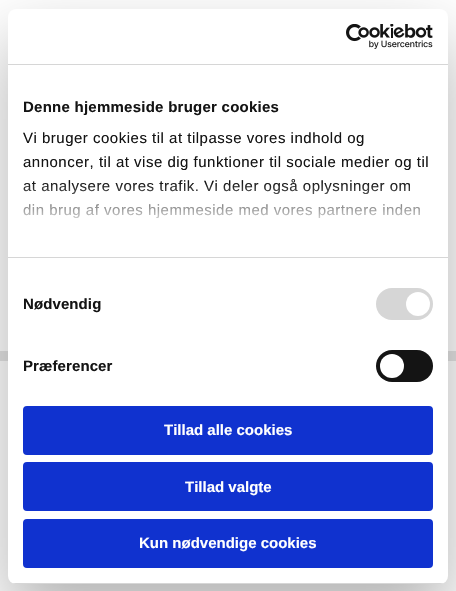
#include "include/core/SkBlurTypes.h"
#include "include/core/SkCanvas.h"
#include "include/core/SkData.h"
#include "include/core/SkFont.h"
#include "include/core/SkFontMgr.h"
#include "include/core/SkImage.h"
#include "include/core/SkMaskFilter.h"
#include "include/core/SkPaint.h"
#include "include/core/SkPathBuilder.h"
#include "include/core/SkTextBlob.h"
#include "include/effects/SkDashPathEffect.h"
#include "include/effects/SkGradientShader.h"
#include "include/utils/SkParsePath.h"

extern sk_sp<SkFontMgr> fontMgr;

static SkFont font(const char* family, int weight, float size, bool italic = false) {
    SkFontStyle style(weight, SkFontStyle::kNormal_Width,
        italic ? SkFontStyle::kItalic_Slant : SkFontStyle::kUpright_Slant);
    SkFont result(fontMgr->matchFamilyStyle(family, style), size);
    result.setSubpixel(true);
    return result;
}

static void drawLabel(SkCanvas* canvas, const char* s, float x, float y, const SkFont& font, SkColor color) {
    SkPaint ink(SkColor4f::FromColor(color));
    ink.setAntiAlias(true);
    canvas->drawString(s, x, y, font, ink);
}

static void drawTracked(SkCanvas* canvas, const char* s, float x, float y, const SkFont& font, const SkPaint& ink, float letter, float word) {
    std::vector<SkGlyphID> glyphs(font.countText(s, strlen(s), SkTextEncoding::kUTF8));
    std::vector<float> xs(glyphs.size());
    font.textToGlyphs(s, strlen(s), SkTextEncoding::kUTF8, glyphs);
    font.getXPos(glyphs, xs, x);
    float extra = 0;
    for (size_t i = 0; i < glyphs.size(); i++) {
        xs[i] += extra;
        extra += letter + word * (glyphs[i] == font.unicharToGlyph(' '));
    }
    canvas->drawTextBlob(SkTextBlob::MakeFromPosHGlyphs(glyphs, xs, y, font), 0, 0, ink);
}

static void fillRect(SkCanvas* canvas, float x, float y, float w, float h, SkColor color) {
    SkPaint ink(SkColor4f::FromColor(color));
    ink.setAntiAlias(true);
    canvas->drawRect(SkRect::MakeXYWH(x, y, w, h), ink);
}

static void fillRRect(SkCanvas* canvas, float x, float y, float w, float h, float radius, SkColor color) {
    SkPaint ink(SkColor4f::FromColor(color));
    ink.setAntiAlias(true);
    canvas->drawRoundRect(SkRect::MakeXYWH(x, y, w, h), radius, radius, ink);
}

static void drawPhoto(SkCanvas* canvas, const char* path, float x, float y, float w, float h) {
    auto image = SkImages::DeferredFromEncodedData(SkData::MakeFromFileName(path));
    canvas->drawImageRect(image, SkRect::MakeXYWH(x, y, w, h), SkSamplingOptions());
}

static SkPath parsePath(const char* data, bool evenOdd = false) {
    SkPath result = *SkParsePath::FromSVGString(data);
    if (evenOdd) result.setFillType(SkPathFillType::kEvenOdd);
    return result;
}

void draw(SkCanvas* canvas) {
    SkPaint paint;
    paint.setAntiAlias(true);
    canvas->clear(0xFFFFFFFF);
    fillRect(canvas, 0, 351, 456, 10, 0xFFE4E4E4);
    paint.setColor(0x4D000000);
    paint.setMaskFilter(SkMaskFilter::MakeBlur(kNormal_SkBlurStyle, 34));
    canvas->drawRoundRect(SkRect::MakeXYWH(8, 41, 440, 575), 8, 8, paint);
    paint.setMaskFilter(nullptr);
    fillRRect(canvas, 8, 9, 440, 575, 8, 0xFFFFFFFF);
    fillRect(canvas, 8, 64, 440, 1, 0xFFD6D6D6);
    drawPhoto(canvas, "assets/img1.png", 346, 24, 87, 25);
    fillRect(canvas, 8, 257, 440, 1, 0xFFD6D6D6);
    SkFont font1 = font("Liberation Sans", 700, 15);
    paint.setColor(0xFF141414);
    drawTracked(canvas, "Denne hjemmeside bruger cookies", 23, 112, font1, paint, 0.25f, 0);
    SkFont font2 = font("Liberation Sans", 400, 15);
    drawTracked(canvas, "Vi bruger cookies til at tilpasse vores indhold og", 23, 143, font2, paint, 0.5f, 0);
    drawTracked(canvas, "annoncer, til at vise dig funktioner til sociale medier og til", 23, 167, font2, paint, 0.5f, 0);
    drawTracked(canvas, "at analysere vores trafik. Vi deler også oplysninger om", 23, 191, font2, paint, 0.5f, 0);
    drawTracked(canvas, "din brug af vores hjemmeside med vores partnere inden", 23, 215, font2, paint, 0.5f, 0);
    {
        const SkColor colors[] = {0xFFFFFFFF, 0xCCFFFFFF, 0x00FFFFFF};
        const float stops[] = {0, 0.5f, 1};
        const SkPoint ends[] = {{222, 257}, {222, 182}};
        paint.setShader(SkGradientShader::MakeLinear(ends, colors, stops, 3, SkTileMode::kClamp));
        paint.setAlpha(255);
    }
    canvas->drawRect(SkRect::MakeXYWH(23, 183, 397, 36), paint);
    paint.setShader(nullptr);
    paint.setColor(0xFF141414);
    drawTracked(canvas, "Nødvendig", 23, 309, font1, paint, 0.1f, 0);
    fillRRect(canvas, 376, 288, 57, 32, 16, 0xFFD6D6D6);
    paint.setColor(0xFFFFFFFF);
    canvas->drawCircle(418, 304, 12, paint);
    paint.setColor(0xFF141414);
    drawTracked(canvas, "Præferencer", 23, 371, font1, paint, 0.1f, 0);
    fillRRect(canvas, 376, 350, 57, 32, 16, 0xFF141414);
    paint.setColor(0xFFFFFFFF);
    canvas->drawCircle(392, 366, 12, paint);
    canvas->save();
    canvas->clipPath(parsePath("M16 9H440C444.5 9 448 12.5 448 17V576C448 580.5 444.5 584 440 584H16C11.5 584 8 580.5 8 576V17C8 12.5 11.5 9 16 9Z"), true);
    fillRect(canvas, 8, 583, 440, 1, 0xFFD6D6D6);
    canvas->restore();
    paint.setColor(0xFF1032CF);
    canvas->drawRoundRect(SkRect::MakeXYWH(24, 407, 408, 47), 3, 3, paint);
    paint.setStroke(true);
    paint.setStrokeWidth(2);
    canvas->drawRoundRect(SkRect::MakeXYWH(24, 407, 408, 47), 3, 3, paint);
    drawLabel(canvas, "Tillad alle cookies", 164, 435, font1, 0xFFFFFFFF);
    paint.setStroke(false);
    canvas->drawRoundRect(SkRect::MakeXYWH(24, 463, 408, 47), 3, 3, paint);
    paint.setStroke(true);
    canvas->drawRoundRect(SkRect::MakeXYWH(24, 463, 408, 47), 3, 3, paint);
    drawLabel(canvas, "Tillad valgte", 185, 492, font1, 0xFFFFFFFF);
    paint.setStroke(false);
    canvas->drawRoundRect(SkRect::MakeXYWH(24, 520, 408, 47), 3, 3, paint);
    paint.setStroke(true);
    canvas->drawRoundRect(SkRect::MakeXYWH(24, 520, 408, 47), 3, 3, paint);
    drawLabel(canvas, "Kun nødvendige cookies", 139, 548, font1, 0xFFFFFFFF);
}
